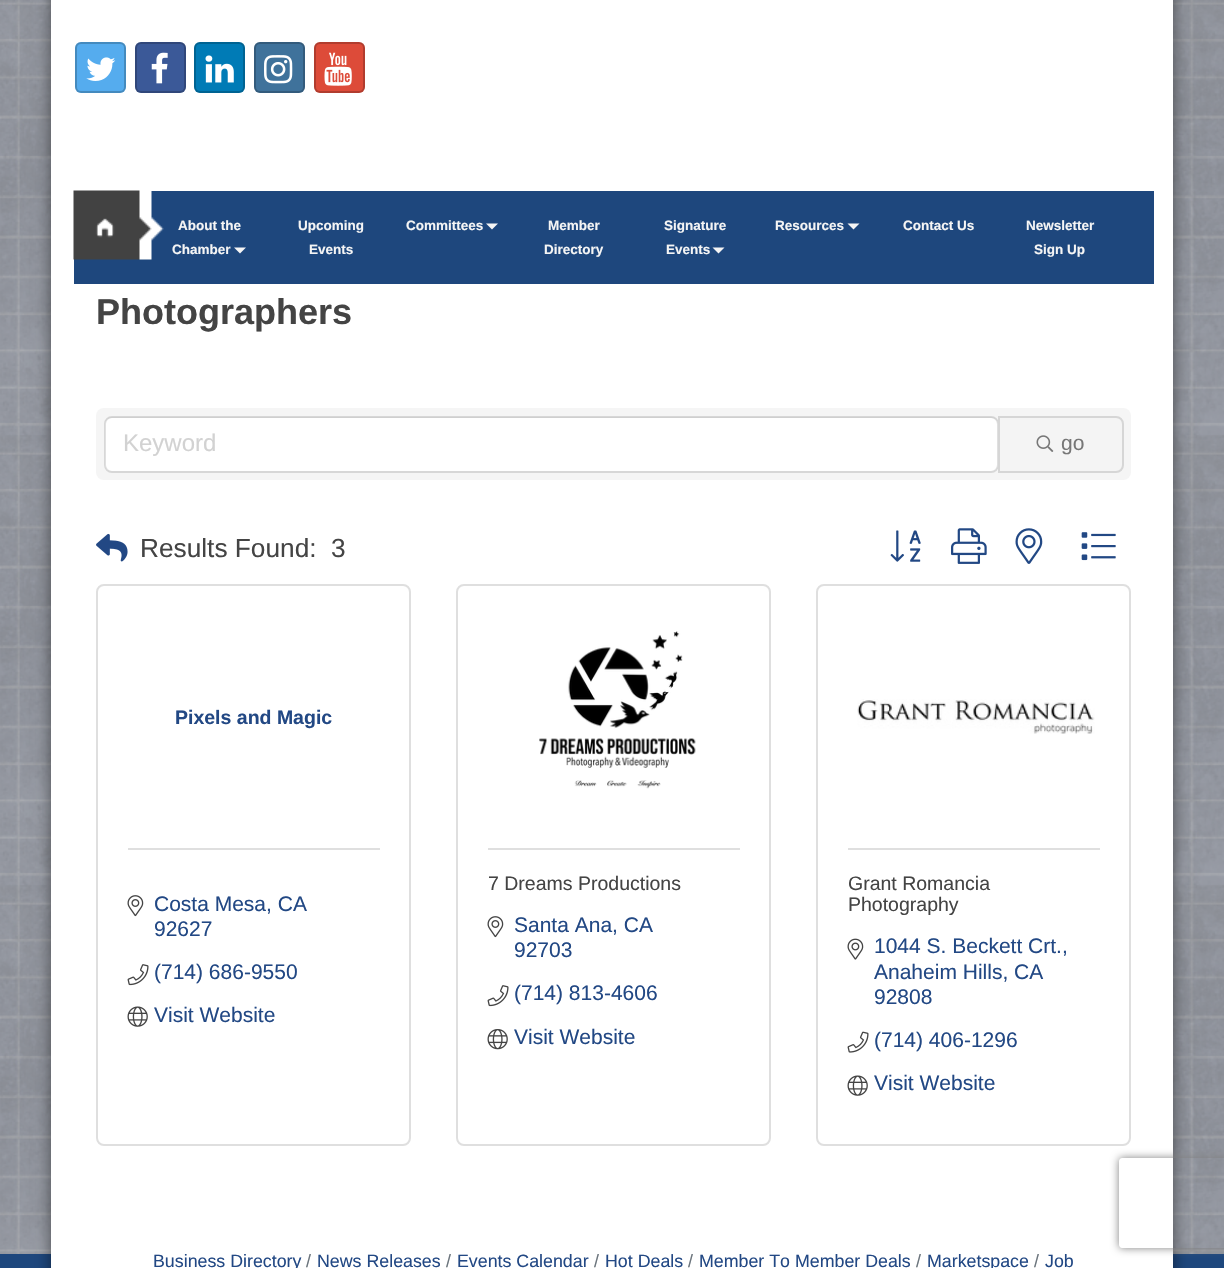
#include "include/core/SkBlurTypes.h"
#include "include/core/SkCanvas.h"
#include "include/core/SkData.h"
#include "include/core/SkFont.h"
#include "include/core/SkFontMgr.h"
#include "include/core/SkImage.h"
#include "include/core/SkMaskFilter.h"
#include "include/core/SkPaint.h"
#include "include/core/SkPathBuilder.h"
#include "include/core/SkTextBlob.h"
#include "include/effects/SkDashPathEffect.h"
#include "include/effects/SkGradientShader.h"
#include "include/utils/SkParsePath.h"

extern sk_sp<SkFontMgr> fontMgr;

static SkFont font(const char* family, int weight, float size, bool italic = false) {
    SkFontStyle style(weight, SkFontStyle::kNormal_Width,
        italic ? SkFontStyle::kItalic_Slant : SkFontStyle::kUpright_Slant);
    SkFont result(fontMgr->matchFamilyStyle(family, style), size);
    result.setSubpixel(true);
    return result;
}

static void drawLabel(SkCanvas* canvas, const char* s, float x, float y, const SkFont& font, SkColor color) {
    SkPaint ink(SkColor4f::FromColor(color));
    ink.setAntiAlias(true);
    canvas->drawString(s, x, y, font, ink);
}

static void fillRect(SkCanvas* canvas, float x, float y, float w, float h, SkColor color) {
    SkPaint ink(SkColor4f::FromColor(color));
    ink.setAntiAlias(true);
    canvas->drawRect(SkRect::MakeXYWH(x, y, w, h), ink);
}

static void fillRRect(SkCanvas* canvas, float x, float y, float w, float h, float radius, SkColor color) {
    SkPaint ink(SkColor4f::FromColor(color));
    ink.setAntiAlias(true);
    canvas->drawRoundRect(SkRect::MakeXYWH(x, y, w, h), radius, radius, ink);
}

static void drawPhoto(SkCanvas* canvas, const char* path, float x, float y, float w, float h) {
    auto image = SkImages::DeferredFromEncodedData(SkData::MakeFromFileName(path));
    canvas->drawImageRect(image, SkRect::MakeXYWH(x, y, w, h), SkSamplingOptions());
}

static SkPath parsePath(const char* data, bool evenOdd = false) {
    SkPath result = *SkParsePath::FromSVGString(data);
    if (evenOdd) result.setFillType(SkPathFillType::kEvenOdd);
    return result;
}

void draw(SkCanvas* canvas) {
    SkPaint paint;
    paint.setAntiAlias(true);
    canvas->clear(0xFF1E477D);
    fillRect(canvas, 0, 0, 1224, 1254, 0xFFFAFAFA);
    drawPhoto(canvas, "assets/img1.png", 0, 0, 1224, 1254);
    paint.setColor(0x80000000);
    paint.setMaskFilter(SkMaskFilter::MakeBlur(kNormal_SkBlurStyle, 7.5f));
    canvas->drawRect(SkRect::MakeXYWH(51, -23, 1122, 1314), paint);
    paint.setMaskFilter(nullptr);
    fillRect(canvas, 51, 0, 1122, 1268, 0xFFFFFFFF);
    fillRRect(canvas, 75, 42, 51, 51, 6, 0xFF55ACEE);
    paint.setStroke(true);
    paint.setStrokeWidth(2);
    paint.setColor(0x33000000);
    canvas->drawRoundRect(SkRect::MakeXYWH(76, 43, 49, 49), 5, 5, paint);
    drawPhoto(canvas, "assets/img2.png", 86, 57, 30, 24);
    fillRRect(canvas, 135, 42, 51, 51, 6, 0xFF3B5998);
    canvas->drawRoundRect(SkRect::MakeXYWH(136, 43, 49, 49), 5, 5, paint);
    drawPhoto(canvas, "assets/img3.png", 151, 52, 17, 32);
    fillRRect(canvas, 194, 42, 51, 51, 6, 0xFF007BB6);
    canvas->drawRoundRect(SkRect::MakeXYWH(195, 43, 49, 49), 5, 5, paint);
    drawPhoto(canvas, "assets/img4.png", 205, 55, 29, 28);
    fillRRect(canvas, 254, 42, 51, 51, 6, 0xFF3F729B);
    canvas->drawRoundRect(SkRect::MakeXYWH(255, 43, 49, 49), 5, 5, paint);
    drawPhoto(canvas, "assets/img5.png", 264, 55, 29, 29);
    fillRRect(canvas, 314, 42, 51, 51, 6, 0xFFDD4B39);
    canvas->drawRoundRect(SkRect::MakeXYWH(315, 43, 49, 49), 5, 5, paint);
    drawPhoto(canvas, "assets/img6.png", 324, 52, 28, 34);
    fillRect(canvas, 74, 191, 1080, 93, 0xFF1E477D);
    drawPhoto(canvas, "assets/img7.png", 73, 190, 91, 70);
    SkFont font1 = font("Liberation Sans", 700, 13.5f);
    drawLabel(canvas, "About the", 178, 230, font1, 0xFFF5F5F5);
    drawLabel(canvas, "Chamber", 172, 254, font1, 0xFFF5F5F5);
    paint.setStroke(false);
    paint.setColor(0xFFF5F5F5);
    canvas->drawPath(parsePath("M234 247.5H246L240 253.5Z"), paint);
    drawLabel(canvas, "Upcoming", 298, 230, font1, 0xFFF5F5F5);
    drawLabel(canvas, "Events", 309, 254, font1, 0xFFF5F5F5);
    drawLabel(canvas, "Committees", 406, 230, font1, 0xFFF5F5F5);
    canvas->drawPath(parsePath("M486 223.5H498L492 229.5Z"), paint);
    drawLabel(canvas, "Member", 548, 230, font1, 0xFFF5F5F5);
    drawLabel(canvas, "Directory", 544, 254, font1, 0xFFF5F5F5);
    drawLabel(canvas, "Signature", 664, 230, font1, 0xFFF5F5F5);
    drawLabel(canvas, "Events", 666, 254, font1, 0xFFF5F5F5);
    canvas->drawPath(parsePath("M712.5 247.5H724.5L718.5 253.5Z"), paint);
    drawLabel(canvas, "Resources", 775, 230, font1, 0xFFF5F5F5);
    canvas->drawPath(parsePath("M847.5 223.5H859.5L853.5 229.5Z"), paint);
    drawLabel(canvas, "Contact Us", 903, 230, font1, 0xFFF5F5F5);
    drawLabel(canvas, "Newsletter", 1026, 230, font1, 0xFFF5F5F5);
    drawLabel(canvas, "Sign Up", 1034, 254, font1, 0xFFF5F5F5);
    SkFont font2 = font("Liberation Sans", 700, 36);
    drawLabel(canvas, "Photographers", 96, 324, font2, 0xFF444444);
    fillRRect(canvas, 96, 408, 1035, 72, 8, 0xFFF5F5F5);
    fillRRect(canvas, 105, 417, 893, 54, 6, 0xFFFFFFFF);
    paint.setColor(0xFFECECEC);
    canvas->drawPath(parsePath("M111 418H992C995 418 998 421 998 424V423C998 420 995 417 992 417H111C108 417 105 420 105 423V424C105 421 108 418 111 418Z"), paint);
    paint.setStroke(true);
    paint.setColor(0x1F000000);
    canvas->drawRoundRect(SkRect::MakeXYWH(105, 417, 893, 55), 7, 7, paint);
    SkFont font3 = font("Liberation Sans", 400, 24);
    drawLabel(canvas, "Keyword", 123, 451, font3, 0xFFD2D2D2);
    paint.setStroke(false);
    paint.setColor(0xFFF4F4F4);
    canvas->drawPath(parsePath("M999 417H1116C1120 417 1123 420 1123 424V465C1123 469 1120 472 1116 472H999Z"), paint);
    paint.setStroke(true);
    paint.setColor(0xFFD6D6D6);
    canvas->drawPath(parsePath("M999 417H1116C1120 417 1123 420 1123 424V465C1123 469 1120 472 1116 472H999Z"), paint);
    drawPhoto(canvas, "assets/img8.png", 1036, 435, 18, 17);
    SkFont font4 = font("Liberation Sans", 400, 21);
    drawLabel(canvas, "go", 1061, 450, font4, 0xFF777777);
    drawPhoto(canvas, "assets/img9.png", 96, 533, 32, 29);
    SkFont font5 = font("Liberation Sans", 400, 26.25f);
    drawLabel(canvas, "Results Found:", 140, 557, font5, 0xFF444444);
    drawLabel(canvas, "3", 331, 557, font5, 0xFF444444);
    drawPhoto(canvas, "assets/img10.png", 890, 530, 31, 32);
    drawPhoto(canvas, "assets/img11.png", 951, 528, 36, 36);
    drawPhoto(canvas, "assets/img12.png", 1015, 528, 28, 36);
    drawPhoto(canvas, "assets/img13.png", 1081, 532, 35, 29);
    paint.setColor(0xFFDFDFDF);
    canvas->drawRoundRect(SkRect::MakeXYWH(97, 585, 313, 560), 7, 7, paint);
    SkFont font6 = font("Liberation Sans", 700, 19.5f);
    drawLabel(canvas, "Pixels and Magic", 175, 724, font6, 0xFF224884);
    fillRect(canvas, 128, 848, 252, 2, 0xFFDFDFDF);
    drawPhoto(canvas, "assets/img14.png", 127, 895, 17, 22);
    drawLabel(canvas, "Costa Mesa, CA", 154, 911, font4, 0xFF224884);
    drawLabel(canvas, "92627", 154, 936, font4, 0xFF224884);
    drawPhoto(canvas, "assets/img15.png", 127, 964, 22, 22);
    drawLabel(canvas, "(714) 686-9550", 154, 979, font4, 0xFF224884);
    drawPhoto(canvas, "assets/img16.png", 127, 1006, 21, 21);
    drawLabel(canvas, "Visit Website", 154, 1022, font4, 0xFF224884);
    canvas->drawRoundRect(SkRect::MakeXYWH(457, 585, 313, 560), 7, 7, paint);
    drawPhoto(canvas, "assets/img17.png", 539, 631, 157, 158);
    fillRect(canvas, 488, 848, 252, 2, 0xFFDFDFDF);
    SkFont font7 = font("Liberation Sans", 400, 19.5f);
    drawLabel(canvas, "7 Dreams Productions", 488, 890, font7, 0xFF444444);
    drawPhoto(canvas, "assets/img14.png", 487, 916, 17, 22);
    drawLabel(canvas, "Santa Ana, CA", 514, 932, font4, 0xFF224884);
    drawLabel(canvas, "92703", 514, 957, font4, 0xFF224884);
    drawPhoto(canvas, "assets/img15.png", 487, 985, 22, 22);
    drawLabel(canvas, "(714) 813-4606", 514, 1000, font4, 0xFF224884);
    drawPhoto(canvas, "assets/img18.png", 487, 1029, 21, 21);
    drawLabel(canvas, "Visit Website", 514, 1044, font4, 0xFF224884);
    canvas->drawRoundRect(SkRect::MakeXYWH(817, 585, 313, 560), 7, 7, paint);
    drawPhoto(canvas, "assets/img19.png", 857, 699, 238, 35);
    fillRect(canvas, 848, 848, 252, 2, 0xFFDFDFDF);
    drawLabel(canvas, "Grant Romancia", 848, 890, font7, 0xFF444444);
    drawLabel(canvas, "Photography", 848, 911, font7, 0xFF444444);
    drawPhoto(canvas, "assets/img20.png", 847, 938, 17, 22);
    drawLabel(canvas, "1044 S. Beckett Crt.,", 874, 953, font4, 0xFF224884);
    drawLabel(canvas, "Anaheim Hills, CA", 874, 979, font4, 0xFF224884);
    drawLabel(canvas, "92808", 874, 1004, font4, 0xFF224884);
    drawPhoto(canvas, "assets/img21.png", 847, 1031, 22, 22);
    drawLabel(canvas, "(714) 406-1296", 874, 1047, font4, 0xFF224884);
    drawPhoto(canvas, "assets/img16.png", 847, 1075, 21, 21);
    drawLabel(canvas, "Visit Website", 874, 1090, font4, 0xFF224884);
    SkFont font8 = font("Liberation Sans", 400, 17.8f);
    drawLabel(canvas, "Business Directory", 153, 1267, font8, 0xFF224884);
    drawLabel(canvas, "/", 306, 1267, font8, 0xFF6C757D);
    drawLabel(canvas, "News Releases", 317, 1267, font8, 0xFF224884);
    drawLabel(canvas, "/", 446, 1267, font8, 0xFF6C757D);
    drawLabel(canvas, "Events Calendar", 457, 1267, font8, 0xFF224884);
    drawLabel(canvas, "/", 594, 1267, font8, 0xFF6C757D);
    drawLabel(canvas, "Hot Deals", 605, 1267, font8, 0xFF224884);
    drawLabel(canvas, "/", 688, 1267, font8, 0xFF6C757D);
    drawLabel(canvas, "Member To Member Deals", 699, 1267, font8, 0xFF224884);
    drawLabel(canvas, "/", 916, 1267, font8, 0xFF6C757D);
    drawLabel(canvas, "Marketspace", 927, 1267, font8, 0xFF224884);
    drawLabel(canvas, "/", 1034, 1267, font8, 0xFF6C757D);
    drawLabel(canvas, "Job", 1045, 1267, font8, 0xFF224884);
    canvas->save();
    canvas->clipPath(parsePath("M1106 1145H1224V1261H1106ZM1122 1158H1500C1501.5 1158 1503 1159.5 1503 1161V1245C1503 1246.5 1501.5 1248 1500 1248H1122C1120.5 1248 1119 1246.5 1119 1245V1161C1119 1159.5 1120.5 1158 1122 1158Z", true), true);
    paint.setStroke(false);
    paint.setColor(0xFF808080);
    paint.setMaskFilter(SkMaskFilter::MakeBlur(kNormal_SkBlurStyle, 4));
    canvas->drawRoundRect(SkRect::MakeXYWH(1119, 1158, 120, 90), 3, 3, paint);
    paint.setMaskFilter(nullptr);
    canvas->restore();
}
